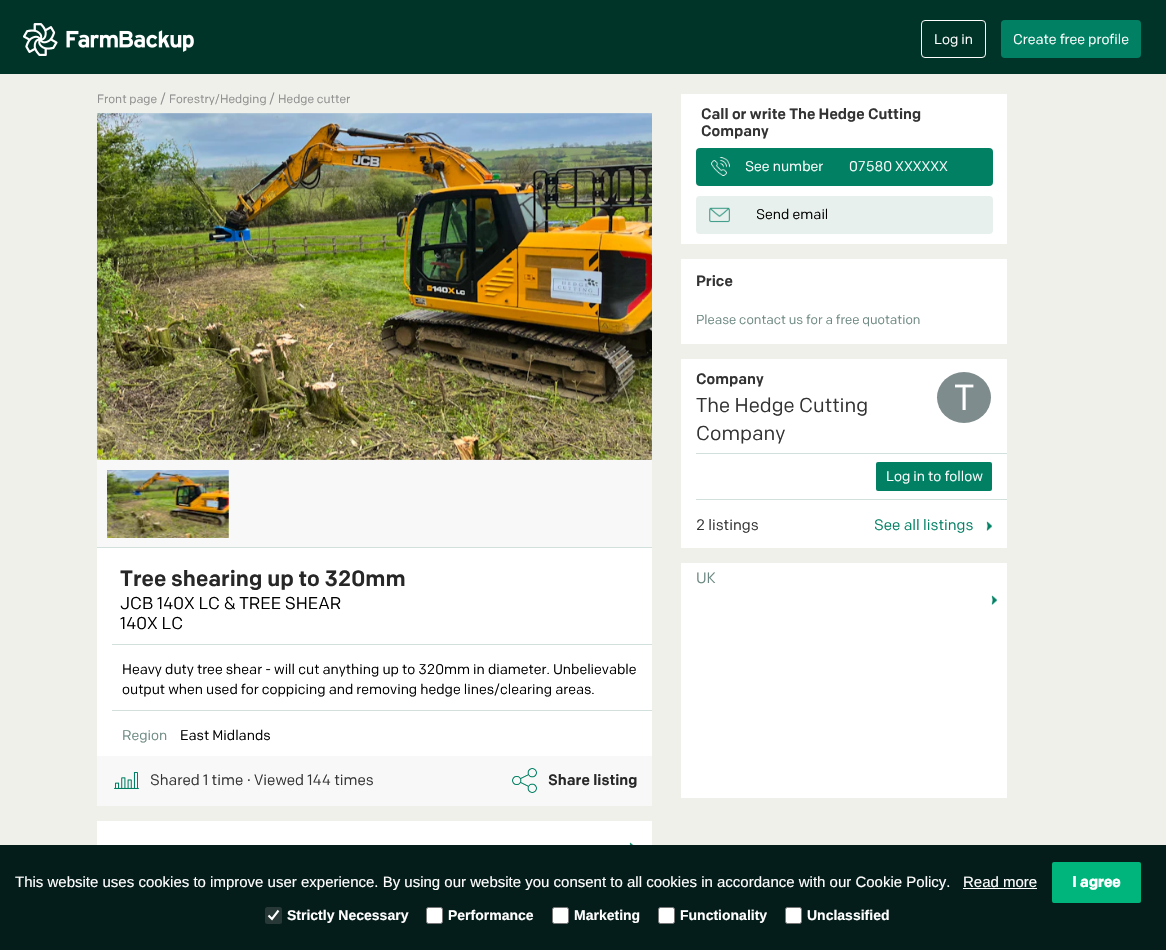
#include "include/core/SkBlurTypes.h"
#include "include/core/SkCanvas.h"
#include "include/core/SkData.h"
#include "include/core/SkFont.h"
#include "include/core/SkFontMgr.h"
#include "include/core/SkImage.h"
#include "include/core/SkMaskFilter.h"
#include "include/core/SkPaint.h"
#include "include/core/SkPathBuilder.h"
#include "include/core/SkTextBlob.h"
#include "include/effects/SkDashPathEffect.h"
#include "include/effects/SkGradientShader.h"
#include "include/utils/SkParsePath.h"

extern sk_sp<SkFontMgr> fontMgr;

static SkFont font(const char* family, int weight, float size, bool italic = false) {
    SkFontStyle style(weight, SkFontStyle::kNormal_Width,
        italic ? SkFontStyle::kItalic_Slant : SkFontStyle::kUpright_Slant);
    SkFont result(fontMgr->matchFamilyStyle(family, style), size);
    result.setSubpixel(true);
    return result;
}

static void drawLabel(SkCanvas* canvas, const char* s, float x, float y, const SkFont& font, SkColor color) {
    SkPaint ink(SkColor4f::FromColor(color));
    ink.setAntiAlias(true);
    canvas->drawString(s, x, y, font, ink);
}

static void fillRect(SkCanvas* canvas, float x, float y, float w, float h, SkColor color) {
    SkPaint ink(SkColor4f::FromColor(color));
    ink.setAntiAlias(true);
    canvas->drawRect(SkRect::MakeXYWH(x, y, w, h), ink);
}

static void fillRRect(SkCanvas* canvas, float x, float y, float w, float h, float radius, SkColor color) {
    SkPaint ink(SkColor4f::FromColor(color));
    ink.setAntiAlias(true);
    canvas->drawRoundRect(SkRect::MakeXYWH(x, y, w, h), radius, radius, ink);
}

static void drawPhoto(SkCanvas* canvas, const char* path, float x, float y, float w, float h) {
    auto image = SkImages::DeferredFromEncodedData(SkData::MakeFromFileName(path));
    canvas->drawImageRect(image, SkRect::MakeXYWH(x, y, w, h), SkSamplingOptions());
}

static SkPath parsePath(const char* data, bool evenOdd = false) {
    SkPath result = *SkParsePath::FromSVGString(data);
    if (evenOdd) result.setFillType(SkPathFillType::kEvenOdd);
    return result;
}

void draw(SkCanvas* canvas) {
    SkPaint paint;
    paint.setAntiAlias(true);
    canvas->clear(0xFFF0F0EB);
    fillRect(canvas, 0, 0, 1166, 74, 0xFF013428);
    drawPhoto(canvas, "assets/img1.png", 23, 23, 171, 33);
    paint.setStroke(true);
    paint.setStrokeWidth(1);
    paint.setColor(0xFFFFFFFF);
    canvas->drawRoundRect(SkRect::MakeXYWH(921.5f, 20.5f, 64, 37), 3.5f, 3.5f, paint);
    SkFont font1 = font("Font", 400, 14);
    drawLabel(canvas, "Log in", 934, 44, font1, 0xFFFFFFFF);
    fillRRect(canvas, 1001, 20, 140, 38, 4, 0xFF028063);
    drawLabel(canvas, "Create free profile", 1013, 44, font1, 0xFFFFFFFF);
    SkFont font2 = font("Font", 400, 12);
    drawLabel(canvas, "Front page", 97, 103, font2, 0xFF8C8C8C);
    drawLabel(canvas, "/", 160, 103, font1, 0xFF8C8C8C);
    drawLabel(canvas, "Forestry/Hedging", 169, 103, font2, 0xFF8C8C8C);
    drawLabel(canvas, "/", 269, 103, font1, 0xFF8C8C8C);
    drawLabel(canvas, "Hedge cutter", 278, 103, font2, 0xFF8C8C8C);
    drawPhoto(canvas, "assets/img2.png", 97, 113, 555, 347);
    fillRect(canvas, 97, 460, 555, 87, 0xFFF8F8F8);
    fillRect(canvas, 97, 547, 555, 1, 0xFFD1E0DD);
    drawPhoto(canvas, "assets/img3.png", 107, 470, 122, 68);
    fillRect(canvas, 97, 548, 555, 208, 0xFFFFFFFF);
    SkFont font3 = font("Font", 500, 22);
    drawLabel(canvas, "Tree shearing up to 320mm", 120, 586, font3, 0xFF272727);
    SkFont font4 = font("Font", 400, 17);
    drawLabel(canvas, "JCB 140X LC & TREE SHEAR", 120, 609, font4, 0xFF000000);
    drawLabel(canvas, "140X LC", 120, 629, font4, 0xFF000000);
    fillRect(canvas, 112, 644, 540, 1, 0xFFD1E0DD);
    drawLabel(canvas, "Heavy duty tree shear - will cut anything up to 320mm in diameter. Unbelievable", 122, 674, font1, 0xFF000000);
    drawLabel(canvas, "output when used for coppicing and removing hedge lines/clearing areas.", 122, 694, font1, 0xFF000000);
    fillRect(canvas, 112, 710, 540, 1, 0xFFD1E0DD);
    drawLabel(canvas, "Region", 122, 740, font1, 0xFF6D8882);
    drawLabel(canvas, "East Midlands", 180, 740, font1, 0xFF000000);
    fillRect(canvas, 97, 756, 555, 50, 0xFFF8F8F8);
    drawPhoto(canvas, "assets/img4.png", 114, 772, 25, 17);
    SkFont font5 = font("Font", 400, 15);
    drawLabel(canvas, "Shared 1 time", 150, 785, font5, 0xFF333333);
    SkFont font6 = font("Liberation Serif", 400, 15);
    drawLabel(canvas, "∙", 247, 785, font6, 0xFF333333);
    drawLabel(canvas, "Viewed 144 times", 254, 785, font5, 0xFF333333);
    drawPhoto(canvas, "assets/img5.png", 512, 768, 25, 25);
    SkFont font7 = font("Font", 500, 15);
    drawLabel(canvas, "Share listing", 548, 785, font7, 0xFF272727);
    fillRect(canvas, 97, 821, 555, 24, 0xFFFFFFFF);
    drawPhoto(canvas, "assets/img6.png", 629, 842, 5, 3);
    fillRect(canvas, 681, 94, 326, 150, 0xFFFFFFFF);
    drawLabel(canvas, "Call or write The Hedge Cutting", 701, 119, font7, 0xFF333333);
    drawLabel(canvas, "Company", 701, 136, font7, 0xFF333333);
    fillRRect(canvas, 696, 148, 297, 38, 4, 0xFF028063);
    drawPhoto(canvas, "assets/img7.png", 711, 157, 19, 19);
    drawLabel(canvas, "See number", 745, 171, font1, 0xFFFFFFFF);
    drawLabel(canvas, "07580 XXXXXX", 849, 171, font1, 0xFFFFFFFF);
    fillRRect(canvas, 696, 196, 297, 38, 4, 0xFFE8F0EE);
    drawPhoto(canvas, "assets/img8.png", 709, 207, 21, 16);
    drawLabel(canvas, "Send email", 756, 219, font1, 0xFF000000);
    fillRect(canvas, 681, 259, 326, 85, 0xFFFFFFFF);
    drawLabel(canvas, "Price", 696, 286, font7, 0xFF333333);
    SkFont font8 = font("Font", 400, 13);
    drawLabel(canvas, "Please contact us for a free quotation", 696, 324, font8, 0xFF6D8882);
    fillRect(canvas, 681, 359, 326, 189, 0xFFFFFFFF);
    drawLabel(canvas, "Company", 696, 384, font7, 0xFF333333);
    SkFont font9 = font("Font", 400, 20);
    drawLabel(canvas, "The Hedge Cutting", 696, 412, font9, 0xFF333333);
    drawLabel(canvas, "Company", 696, 440, font9, 0xFF333333);
    paint.setStroke(false);
    paint.setColor(0xFF7F8C8D);
    canvas->drawOval(SkRect::MakeXYWH(937, 372, 54, 51), paint);
    SkFont font10 = font("Font", 400, 36);
    drawLabel(canvas, "T", 954, 410, font10, 0xFFFFFFFF);
    fillRect(canvas, 696, 453, 311, 1, 0xFFD1E0DD);
    fillRRect(canvas, 876, 462, 116, 29, 2, 0xFF028063);
    drawLabel(canvas, "Log in to follow", 886, 481, font1, 0xFFFFFFFF);
    fillRect(canvas, 696, 499, 311, 1, 0xFFD1E0DD);
    drawLabel(canvas, "2 listings", 696, 530, font5, 0xFF333333);
    drawLabel(canvas, "See all listings", 874, 530, font5, 0xFF028063);
    drawPhoto(canvas, "assets/img9.png", 986, 521, 6, 10);
    fillRect(canvas, 681, 563, 326, 235, 0xFFFFFFFF);
    drawLabel(canvas, "UK", 696, 583, font5, 0xFF6D8882);
    drawPhoto(canvas, "assets/img9.png", 991, 595, 6, 10);
    fillRect(canvas, 0, 845, 1166, 105, 0xFF051D1A);
    SkFont font11 = font("Liberation Sans", 400, 15);
    drawLabel(canvas, "This website uses cookies to improve user experience. By using our website you consent to all cookies in accordance with our Cookie Policy.", 15, 887, font11, 0xFFFFFFFF);
    drawLabel(canvas, "Read more", 963, 887, font11, 0xFFFFFFFF);
    fillRect(canvas, 963, 888, 74, 1, 0xFFFFFFFF);
    fillRRect(canvas, 1052, 862, 89, 41, 2, 0xFF00B57C);
    SkFont font12 = font("Font", 700, 15);
    drawLabel(canvas, "I agree", 1072, 887, font12, 0xFFFFFFFF);
    fillRRect(canvas, 265, 907, 17, 17, 2.5f, 0xFF273836);
    paint.setStroke(true);
    paint.setStrokeWidth(2.1f);
    paint.setColor(0xFFFFFFFF);
    canvas->drawPath(parsePath("M268.5 915.5L272 919L278.5 910.5"), paint);
    SkFont font13 = font("Liberation Sans", 700, 14);
    drawLabel(canvas, "Strictly Necessary", 287, 920, font13, 0xFFFFFFFF);
    paint.setStroke(false);
    canvas->drawRoundRect(SkRect::MakeXYWH(426.5f, 907.5f, 16, 16), 2, 2, paint);
    paint.setStroke(true);
    paint.setStrokeWidth(1);
    paint.setColor(0xFF767676);
    canvas->drawRoundRect(SkRect::MakeXYWH(426.5f, 907.5f, 16, 16), 2, 2, paint);
    drawLabel(canvas, "Performance", 448, 920, font13, 0xFFFFFFFF);
    paint.setStroke(false);
    paint.setColor(0xFFFFFFFF);
    canvas->drawRoundRect(SkRect::MakeXYWH(552.5f, 907.5f, 16, 16), 2, 2, paint);
    paint.setStroke(true);
    paint.setColor(0xFF767676);
    canvas->drawRoundRect(SkRect::MakeXYWH(552.5f, 907.5f, 16, 16), 2, 2, paint);
    drawLabel(canvas, "Marketing", 574, 920, font13, 0xFFFFFFFF);
    paint.setStroke(false);
    paint.setColor(0xFFFFFFFF);
    canvas->drawRoundRect(SkRect::MakeXYWH(658.5f, 907.5f, 16, 16), 2, 2, paint);
    paint.setStroke(true);
    paint.setColor(0xFF767676);
    canvas->drawRoundRect(SkRect::MakeXYWH(658.5f, 907.5f, 16, 16), 2, 2, paint);
    drawLabel(canvas, "Functionality", 680, 920, font13, 0xFFFFFFFF);
    paint.setStroke(false);
    paint.setColor(0xFFFFFFFF);
    canvas->drawRoundRect(SkRect::MakeXYWH(785.5f, 907.5f, 16, 16), 2, 2, paint);
    paint.setStroke(true);
    paint.setColor(0xFF767676);
    canvas->drawRoundRect(SkRect::MakeXYWH(785.5f, 907.5f, 16, 16), 2, 2, paint);
    drawLabel(canvas, "Unclassified", 807, 920, font13, 0xFFFFFFFF);
}
